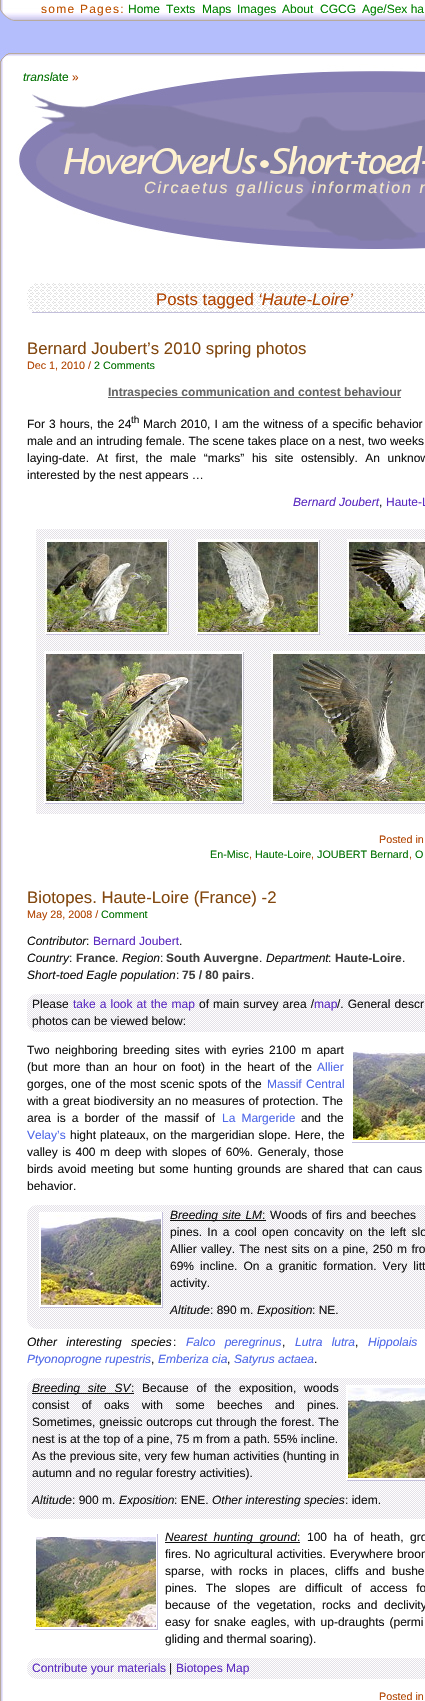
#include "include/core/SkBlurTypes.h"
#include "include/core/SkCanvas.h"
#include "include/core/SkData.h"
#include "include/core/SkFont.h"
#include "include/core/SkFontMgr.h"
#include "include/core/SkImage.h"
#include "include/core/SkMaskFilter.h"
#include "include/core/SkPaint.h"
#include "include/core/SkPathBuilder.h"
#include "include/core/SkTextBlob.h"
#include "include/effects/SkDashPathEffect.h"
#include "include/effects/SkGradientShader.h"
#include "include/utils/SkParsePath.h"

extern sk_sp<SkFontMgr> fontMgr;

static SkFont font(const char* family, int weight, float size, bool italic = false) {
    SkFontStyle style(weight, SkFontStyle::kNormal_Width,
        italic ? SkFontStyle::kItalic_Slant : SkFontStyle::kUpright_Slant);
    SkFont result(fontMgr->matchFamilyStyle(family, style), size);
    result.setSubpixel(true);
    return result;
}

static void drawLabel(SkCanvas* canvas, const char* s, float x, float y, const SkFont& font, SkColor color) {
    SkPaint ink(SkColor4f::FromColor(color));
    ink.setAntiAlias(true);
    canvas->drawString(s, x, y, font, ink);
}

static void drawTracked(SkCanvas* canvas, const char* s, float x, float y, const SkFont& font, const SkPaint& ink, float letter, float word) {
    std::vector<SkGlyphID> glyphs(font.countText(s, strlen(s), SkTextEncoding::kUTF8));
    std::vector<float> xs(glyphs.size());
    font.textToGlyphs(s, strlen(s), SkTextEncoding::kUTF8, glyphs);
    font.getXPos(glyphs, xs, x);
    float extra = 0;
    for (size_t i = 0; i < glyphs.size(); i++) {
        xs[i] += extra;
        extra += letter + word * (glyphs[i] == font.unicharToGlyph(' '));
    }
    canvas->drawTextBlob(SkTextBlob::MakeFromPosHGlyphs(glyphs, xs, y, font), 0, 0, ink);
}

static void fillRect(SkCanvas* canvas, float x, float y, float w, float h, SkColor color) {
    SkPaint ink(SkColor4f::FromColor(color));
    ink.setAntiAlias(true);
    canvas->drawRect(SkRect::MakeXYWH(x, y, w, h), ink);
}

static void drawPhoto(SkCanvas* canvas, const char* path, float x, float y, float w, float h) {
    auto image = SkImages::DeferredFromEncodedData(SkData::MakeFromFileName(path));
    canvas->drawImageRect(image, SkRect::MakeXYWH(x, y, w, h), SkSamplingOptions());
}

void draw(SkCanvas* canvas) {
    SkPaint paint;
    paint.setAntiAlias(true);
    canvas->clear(0xFFFFFFFF);
    drawPhoto(canvas, "assets/img1.png", 0, 249, 425, 1452);
    drawPhoto(canvas, "assets/img3.png", 0, 10, 425, 239);
    drawPhoto(canvas, "assets/img2.png", 0, 0, 425, 21);
    SkFont font1 = font("Liberation Sans", 400, 12);
    paint.setColor(0xFFBD5000);
    drawTracked(canvas, "some Pages:", 41, 13, font1, paint, 1.25f, 0);
    drawLabel(canvas, "Home", 128, 13, font1, 0xFF008000);
    drawLabel(canvas, "Texts", 166, 13, font1, 0xFF008000);
    drawLabel(canvas, "Maps", 202, 13, font1, 0xFF008000);
    drawLabel(canvas, "Images", 237, 13, font1, 0xFF008000);
    drawLabel(canvas, "About", 282, 13, font1, 0xFF008000);
    drawLabel(canvas, "CGCG", 320, 13, font1, 0xFF008000);
    drawLabel(canvas, "Age/Sex ha", 362, 13, font1, 0xFF008000);
    SkFont font2 = font("Liberation Sans", 400, 12, true);
    drawLabel(canvas, "transl", 23, 81, font2, 0xFF007000);
    drawLabel(canvas, "ate", 52, 81, font1, 0xFF007000);
    drawLabel(canvas, "»", 72, 81, font1, 0xFFB14401);
    SkFont font3 = font("Liberation Sans", 400, 16, true);
    paint.setColor(0xFFF7EAC8);
    drawTracked(canvas, "Circaetus gallicus information n", 144, 193, font3, paint, 2, 0);
    drawPhoto(canvas, "assets/img4.png", 27, 283, 398, 29);
    fillRect(canvas, 32, 312, 393, 1, 0xFFC3BFDB);
    SkFont font4 = font("Liberation Sans", 400, 16.75f);
    drawLabel(canvas, "Posts tagged", 156, 305, font4, 0xFFB14401);
    SkFont font5 = font("Liberation Sans", 400, 16.75f, true);
    drawLabel(canvas, "‘Haute-Loire’", 258, 305, font5, 0xFFB14401);
    drawLabel(canvas, "Bernard Joubert’s 2010 spring photos", 27, 354, font4, 0xFF82470E);
    SkFont font6 = font("Liberation Sans", 400, 10.75f);
    drawLabel(canvas, "Dec 1, 2010 /", 27, 369, font6, 0xFFB14401);
    drawLabel(canvas, "2 Comments", 94, 369, font6, 0xFF007000);
    fillRect(canvas, 108, 397, 293, 1, 0xFF666666);
    SkFont font7 = font("Liberation Sans", 700, 12);
    drawLabel(canvas, "Intraspecies communication and contest behaviour", 108, 396, font7, 0xFF666666);
    paint.setColor(0xFF111111);
    drawTracked(canvas, "For 3 hours, the 24", 27, 428, font1, paint, 0, 0.75f);
    SkFont font8 = font("Liberation Sans", 400, 10);
    drawLabel(canvas, "th", 131, 423, font8, 0xFF111111);
    drawTracked(canvas, "March 2010, I am the witness of a specific behavior", 143, 428, font1, paint, 0, 0.75f);
    drawLabel(canvas, "male and an intruding female. The scene takes place on a nest, two weeks", 27, 445, font1, 0xFF111111);
    drawTracked(canvas, "laying-date. At first, the male “marks” his site ostensibly. An unknow", 27, 462, font1, paint, 0, 4.25f);
    drawLabel(canvas, "interested by the nest appears …", 27, 479, font1, 0xFF111111);
    drawLabel(canvas, "Bernard Joubert", 293, 506, font2, 0xFF5D2DC1);
    drawLabel(canvas, ",", 379, 506, font1, 0xFF111111);
    drawLabel(canvas, "Haute-L", 386, 506, font1, 0xFF5D2DC1);
    drawPhoto(canvas, "assets/img5.png", 36, 529, 389, 285);
    drawLabel(canvas, "Posted in", 379, 843, font6, 0xFFB14401);
    drawLabel(canvas, "En-Misc", 210, 858, font6, 0xFF007000);
    drawLabel(canvas, ",", 249, 858, font6, 0xFFB14401);
    drawLabel(canvas, "Haute-Loire", 255, 858, font6, 0xFF007000);
    drawLabel(canvas, ",", 311, 858, font6, 0xFFB14401);
    drawLabel(canvas, "JOUBERT Bernard", 317, 858, font6, 0xFF007000);
    drawLabel(canvas, ",", 409, 858, font6, 0xFFB14401);
    drawLabel(canvas, "O", 415, 858, font6, 0xFF007000);
    drawLabel(canvas, "Biotopes. Haute-Loire (France) -2", 27, 903, font4, 0xFF82470E);
    drawLabel(canvas, "May 28, 2008 /", 27, 918, font6, 0xFFB14401);
    drawLabel(canvas, "Comment", 101, 918, font6, 0xFF007000);
    drawLabel(canvas, "Contributor", 27, 945, font2, 0xFF111111);
    drawLabel(canvas, ":", 86, 945, font1, 0xFF111111);
    drawLabel(canvas, "Bernard Joubert", 93, 945, font1, 0xFF5D2DC1);
    drawLabel(canvas, ".", 179, 945, font1, 0xFF111111);
    drawLabel(canvas, "Country", 27, 962, font2, 0xFF111111);
    drawLabel(canvas, ":", 69, 962, font1, 0xFF111111);
    drawLabel(canvas, "France", 76, 962, font7, 0xFF3D3D3D);
    drawLabel(canvas, ".", 115, 962, font1, 0xFF111111);
    drawLabel(canvas, "Region", 122, 962, font2, 0xFF111111);
    drawLabel(canvas, ":", 160, 962, font1, 0xFF111111);
    drawLabel(canvas, "South Auvergne", 166, 962, font7, 0xFF3D3D3D);
    drawLabel(canvas, ".", 259, 962, font1, 0xFF111111);
    drawLabel(canvas, "Department", 266, 962, font2, 0xFF111111);
    drawLabel(canvas, ":", 328, 962, font1, 0xFF111111);
    drawLabel(canvas, "Haute-Loire", 335, 962, font7, 0xFF3D3D3D);
    drawLabel(canvas, ".", 402, 962, font1, 0xFF111111);
    drawLabel(canvas, "Short-toed Eagle population", 27, 979, font2, 0xFF111111);
    drawLabel(canvas, ":", 176, 979, font1, 0xFF111111);
    drawLabel(canvas, "75 / 80 pairs", 182, 979, font7, 0xFF3D3D3D);
    drawLabel(canvas, ".", 251, 979, font1, 0xFF111111);
    drawPhoto(canvas, "assets/img6.png", 27, 994, 398, 38);
    drawLabel(canvas, "Please", 32, 1008, font1, 0xFF111111);
    paint.setColor(0xFF5D2DC1);
    drawTracked(canvas, "take a look at the map", 73, 1008, font1, paint, 0, 0.75f);
    paint.setColor(0xFF111111);
    drawTracked(canvas, "of main survey area /", 199, 1008, font1, paint, 0, 0.75f);
    drawLabel(canvas, "map", 314, 1008, font1, 0xFF5D2DC1);
    drawTracked(canvas, "/. General descr", 337, 1008, font1, paint, 0, 0.75f);
    drawLabel(canvas, "photos can be viewed below:", 32, 1025, font1, 0xFF111111);
    drawTracked(canvas, "Two neighboring breeding sites with eyries 2100 m apart", 27, 1054, font1, paint, 0, 2);
    drawPhoto(canvas, "assets/img7.png", 353, 1050, 72, 90);
    fillRect(canvas, 351, 1142, 74, 1, 0xFFC3BFDB);
    fillRect(canvas, 351, 1142, 1, 1, 0xFFFFFFFF);
    drawTracked(canvas, "(but more than an hour on foot) in the heart of the", 27, 1071, font1, paint, 0, 2);
    drawLabel(canvas, "Allier", 317, 1071, font1, 0xFF4F68E8);
    drawTracked(canvas, "gorges, one of the most scenic spots of the", 27, 1088, font1, paint, 0, 0.75f);
    paint.setColor(0xFF4F68E8);
    drawTracked(canvas, "Massif Central", 267, 1088, font1, paint, 0, 1);
    paint.setColor(0xFF111111);
    drawTracked(canvas, "with a great biodiversity an no measures of protection. The", 27, 1105, font1, paint, 0, 0.5f);
    drawTracked(canvas, "area is a border of the massif of", 27, 1122, font1, paint, 0, 2.75f);
    paint.setColor(0xFF4F68E8);
    drawTracked(canvas, "La Margeride", 222, 1122, font1, paint, 0, 2.75f);
    paint.setColor(0xFF111111);
    drawTracked(canvas, "and the", 301, 1122, font1, paint, 0, 2.75f);
    drawLabel(canvas, "Velay’s", 27, 1139, font1, 0xFF4F68E8);
    drawTracked(canvas, "hight plateaux, on the margeridian slope. Here, the", 70, 1139, font1, paint, 0, 0.75f);
    drawTracked(canvas, "valley is 400 m deep with slopes of 60%. Generaly, those", 27, 1156, font1, paint, 0, 1.25f);
    drawTracked(canvas, "birds avoid meeting but some hunting grounds are shared that can caus", 27, 1173, font1, paint, 0, 1.25f);
    drawLabel(canvas, "behavior.", 27, 1190, font1, 0xFF111111);
    drawPhoto(canvas, "assets/img8.png", 27, 1205, 398, 124);
    fillRect(canvas, 162, 1212, 1, 96, 0xFFC3BFDB);
    fillRect(canvas, 39, 1307, 124, 1, 0xFFC3BFDB);
    fillRect(canvas, 39, 1212, 1, 96, 0xFFFFFFFF);
    fillRect(canvas, 40, 1212, 122, 95, 0xFFFFFFFF);
    drawPhoto(canvas, "assets/img9.png", 41, 1215, 120, 90);
    fillRect(canvas, 170, 1220, 92, 1, 0xFF111111);
    drawTracked(canvas, "Breeding site LM", 170, 1219, font2, paint, 0, 1);
    fillRect(canvas, 262, 1220, 4, 1, 0xFF111111);
    drawLabel(canvas, ":", 262, 1219, font1, 0xFF111111);
    drawTracked(canvas, "Woods of firs and beeches", 270, 1219, font1, paint, 0, 1);
    drawTracked(canvas, "pines. In a cool open concavity on the left slo", 170, 1236, font1, paint, 0, 2);
    drawTracked(canvas, "Allier valley. The nest sits on a pine, 250 m fro", 170, 1253, font1, paint, 0, 1);
    drawTracked(canvas, "69% incline. On a granitic formation. Very litt", 170, 1270, font1, paint, 0, 2.75f);
    drawLabel(canvas, "activity.", 170, 1287, font1, 0xFF111111);
    drawLabel(canvas, "Altitude", 170, 1314, font2, 0xFF111111);
    drawLabel(canvas, ": 890 m.", 210, 1314, font1, 0xFF111111);
    drawLabel(canvas, "Exposition", 257, 1314, font2, 0xFF111111);
    drawLabel(canvas, ": NE.", 312, 1314, font1, 0xFF111111);
    drawTracked(canvas, "Other interesting species", 27, 1346, font2, paint, 0, 6);
    drawLabel(canvas, ":", 173, 1346, font1, 0xFF111111);
    paint.setColor(0xFF4F68E8);
    drawTracked(canvas, "Falco peregrinus", 186, 1346, font2, paint, 0, 6);
    drawLabel(canvas, ",", 282, 1346, font1, 0xFF111111);
    drawTracked(canvas, "Lutra lutra", 295, 1346, font2, paint, 0, 6);
    drawLabel(canvas, ",", 355, 1346, font1, 0xFF111111);
    drawTracked(canvas, "Hippolais", 368, 1346, font2, paint, 0, 6);
    drawLabel(canvas, "Ptyonoprogne rupestris", 27, 1363, font2, 0xFF4F68E8);
    drawLabel(canvas, ",", 151, 1363, font1, 0xFF111111);
    drawLabel(canvas, "Emberiza cia", 158, 1363, font2, 0xFF4F68E8);
    drawLabel(canvas, ",", 227, 1363, font1, 0xFF111111);
    drawLabel(canvas, "Satyrus actaea", 234, 1363, font2, 0xFF4F68E8);
    drawLabel(canvas, ".", 314, 1363, font1, 0xFF111111);
    drawPhoto(canvas, "assets/img10.png", 27, 1378, 398, 141);
    fillRect(canvas, 32, 1393, 99, 1, 0xFF111111);
    paint.setColor(0xFF111111);
    drawTracked(canvas, "Breeding site SV", 32, 1392, font2, paint, 0, 4.5f);
    fillRect(canvas, 131, 1393, 3, 1, 0xFF111111);
    drawTracked(canvas, "Because of the exposition, woods", 142, 1392, font1, paint, 0, 4.5f);
    drawLabel(canvas, ":", 131, 1392, font1, 0xFF111111);
    drawTracked(canvas, "consist of oaks with some beeches and pines.", 32, 1409, font1, paint, 0, 9);
    drawTracked(canvas, "Sometimes, gneissic outcrops cut through the forest. The", 32, 1426, font1, paint, 0, 0.5f);
    drawLabel(canvas, "nest is at the top of a pine, 75 m from a path. 55% incline.", 32, 1443, font1, 0xFF111111);
    drawTracked(canvas, "As the previous site, very few human activities (hunting in", 32, 1460, font1, paint, 0, 0.25f);
    drawLabel(canvas, "autumn and no regular forestry activities).", 32, 1477, font1, 0xFF111111);
    drawLabel(canvas, "Altitude", 32, 1504, font2, 0xFF111111);
    drawLabel(canvas, ": 900 m.", 72, 1504, font1, 0xFF111111);
    drawLabel(canvas, "Exposition", 119, 1504, font2, 0xFF111111);
    drawLabel(canvas, ": ENE.", 174, 1504, font1, 0xFF111111);
    drawLabel(canvas, "Other interesting species", 212, 1504, font2, 0xFF111111);
    drawLabel(canvas, ": idem.", 345, 1504, font1, 0xFF111111);
    fillRect(canvas, 346, 1480, 79, 1, 0xFFC3BFDB);
    fillRect(canvas, 346, 1385, 1, 96, 0xFFFFFFFF);
    fillRect(canvas, 347, 1385, 78, 95, 0xFFFFFFFF);
    drawPhoto(canvas, "assets/img11.png", 348, 1388, 77, 90);
    drawPhoto(canvas, "assets/img12.png", 36, 1537, 120, 90);
    fillRect(canvas, 157, 1534, 1, 96, 0xFFC3BFDB);
    fillRect(canvas, 34, 1629, 124, 1, 0xFFC3BFDB);
    fillRect(canvas, 34, 1629, 1, 1, 0xFFFFFFFF);
    fillRect(canvas, 165, 1542, 132, 1, 0xFF111111);
    drawTracked(canvas, "Nearest hunting ground", 165, 1541, font2, paint, 0, 3.25f);
    fillRect(canvas, 297, 1542, 3, 1, 0xFF111111);
    drawLabel(canvas, ":", 297, 1541, font1, 0xFF111111);
    drawTracked(canvas, "100 ha of heath, gro", 307, 1541, font1, paint, 0, 3.25f);
    drawTracked(canvas, "fires. No agricultural activities. Everywhere broom", 165, 1558, font1, paint, 0, 0.5f);
    drawTracked(canvas, "sparse, with rocks in places, cliffs and bushe", 165, 1575, font1, paint, 0, 3.25f);
    drawTracked(canvas, "pines. The slopes are difficult of access fo", 165, 1592, font1, paint, 0, 5.5f);
    drawTracked(canvas, "because of the vegetation, rocks and declivity", 165, 1609, font1, paint, 0, 3.25f);
    drawTracked(canvas, "easy for snake eagles, with up-draughts (permi", 165, 1626, font1, paint, 0, 1.5f);
    drawLabel(canvas, "gliding and thermal soaring).", 165, 1643, font1, 0xFF111111);
    drawPhoto(canvas, "assets/img13.png", 27, 1658, 398, 21);
    drawLabel(canvas, "Contribute your materials", 32, 1672, font1, 0xFF5D2DC1);
    drawLabel(canvas, "|", 169, 1672, font1, 0xFF111111);
    drawLabel(canvas, "Biotopes Map", 176, 1672, font1, 0xFF5D2DC1);
    drawLabel(canvas, "Posted in", 379, 1700, font6, 0xFFB14401);
}
